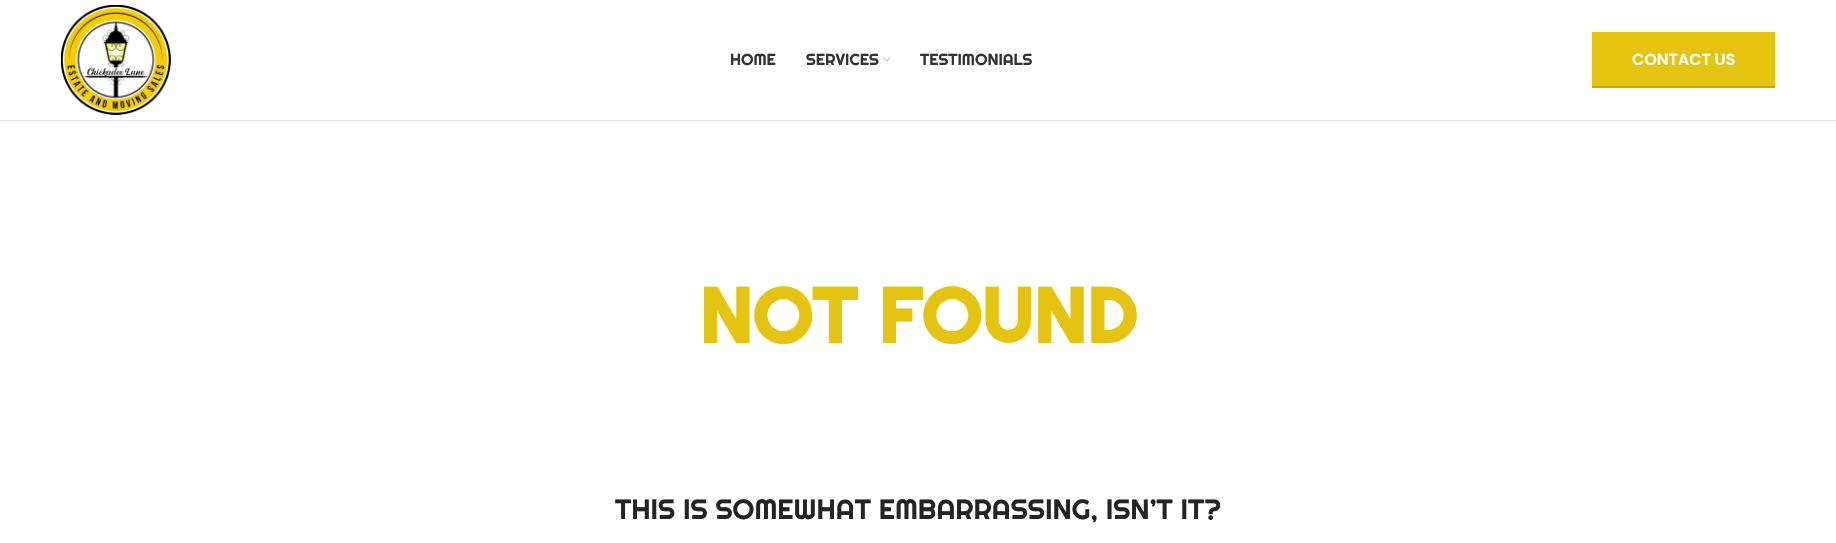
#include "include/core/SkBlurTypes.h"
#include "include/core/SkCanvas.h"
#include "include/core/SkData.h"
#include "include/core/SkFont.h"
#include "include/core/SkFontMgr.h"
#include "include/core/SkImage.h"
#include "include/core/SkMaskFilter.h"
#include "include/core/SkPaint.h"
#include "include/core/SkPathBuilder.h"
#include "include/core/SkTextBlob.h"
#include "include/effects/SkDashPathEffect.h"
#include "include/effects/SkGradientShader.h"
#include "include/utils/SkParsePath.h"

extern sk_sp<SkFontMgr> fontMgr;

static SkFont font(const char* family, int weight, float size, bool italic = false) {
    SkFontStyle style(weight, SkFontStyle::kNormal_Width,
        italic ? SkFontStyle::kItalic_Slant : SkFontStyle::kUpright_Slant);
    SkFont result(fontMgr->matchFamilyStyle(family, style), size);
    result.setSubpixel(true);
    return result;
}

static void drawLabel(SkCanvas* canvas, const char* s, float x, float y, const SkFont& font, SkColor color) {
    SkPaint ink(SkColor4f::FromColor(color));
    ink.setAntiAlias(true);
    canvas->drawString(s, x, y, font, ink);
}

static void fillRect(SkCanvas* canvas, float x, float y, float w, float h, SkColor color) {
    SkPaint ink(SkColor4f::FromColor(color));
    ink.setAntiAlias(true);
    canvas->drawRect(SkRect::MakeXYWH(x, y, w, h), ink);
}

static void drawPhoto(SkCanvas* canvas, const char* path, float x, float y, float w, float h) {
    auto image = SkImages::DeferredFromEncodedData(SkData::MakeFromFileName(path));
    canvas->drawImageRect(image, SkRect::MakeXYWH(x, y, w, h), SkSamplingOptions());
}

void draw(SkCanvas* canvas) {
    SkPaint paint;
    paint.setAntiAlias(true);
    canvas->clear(0xFFFFFFFF);
    fillRect(canvas, 0, 120, 1836, 1, 0xFFE6E6E6);
    drawPhoto(canvas, "assets/img1.png", 61, 5, 110, 110);
    SkFont font1 = font("Righteous", 400, 16);
    drawLabel(canvas, "HOME", 730, 65, font1, 0xFF333333);
    drawLabel(canvas, "SERVICES", 806, 65, font1, 0xFF333333);
    drawPhoto(canvas, "assets/img2.png", 883, 57, 8, 5);
    drawLabel(canvas, "TESTIMONIALS", 920, 65, font1, 0xFF333333);
    fillRect(canvas, 1592, 32, 183, 54, 0xFFE4C410);
    fillRect(canvas, 1592, 86, 183, 2, 0xFFC2A70E);
    SkFont font2 = font("Poppins", 600, 16);
    drawLabel(canvas, "CONTACT US", 1632, 65, font2, 0xFFFFFFFF);
    SkFont font3 = font("Righteous", 700, 77);
    drawLabel(canvas, "NOT FOUND", 699, 343, font3, 0xFFE4C410);
    SkFont font4 = font("Righteous", 400, 28);
    drawLabel(canvas, "THIS IS SOMEWHAT EMBARRASSING, ISN’T IT?", 615, 519, font4, 0xFF242424);
}
